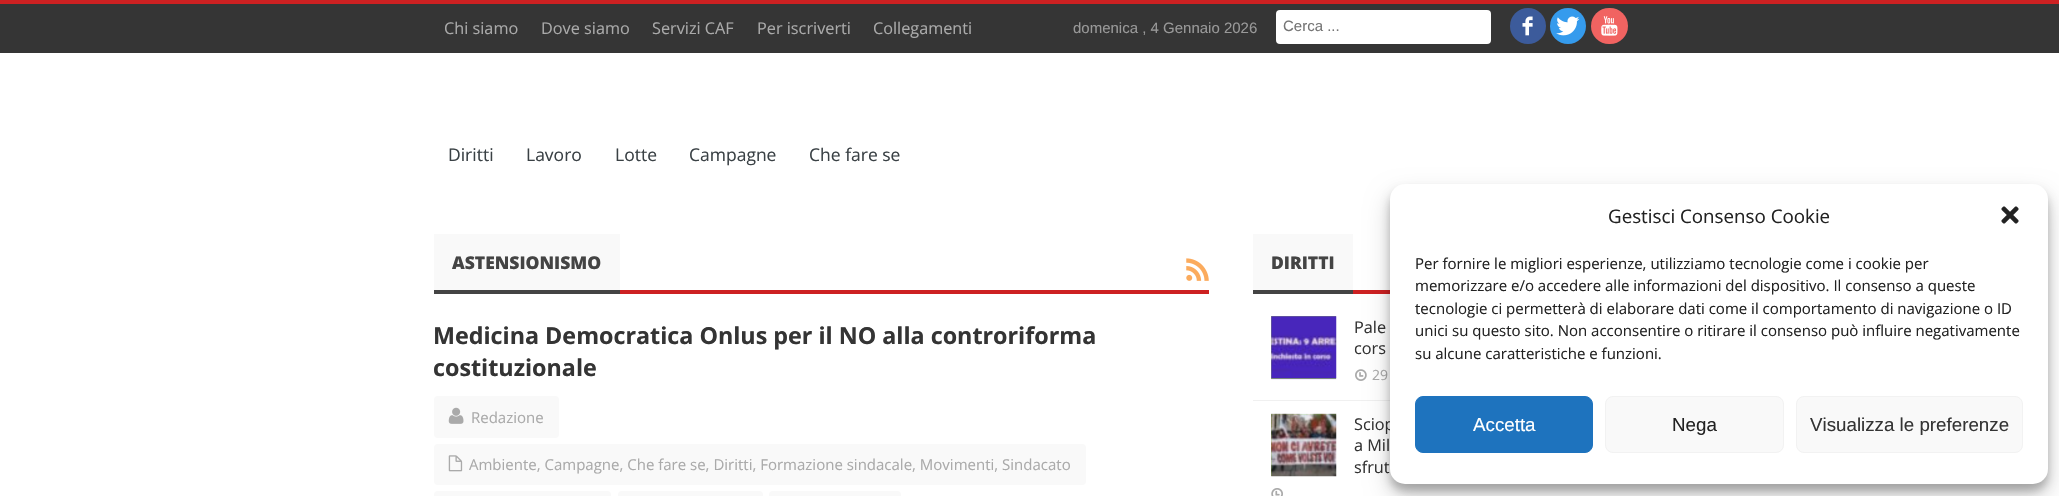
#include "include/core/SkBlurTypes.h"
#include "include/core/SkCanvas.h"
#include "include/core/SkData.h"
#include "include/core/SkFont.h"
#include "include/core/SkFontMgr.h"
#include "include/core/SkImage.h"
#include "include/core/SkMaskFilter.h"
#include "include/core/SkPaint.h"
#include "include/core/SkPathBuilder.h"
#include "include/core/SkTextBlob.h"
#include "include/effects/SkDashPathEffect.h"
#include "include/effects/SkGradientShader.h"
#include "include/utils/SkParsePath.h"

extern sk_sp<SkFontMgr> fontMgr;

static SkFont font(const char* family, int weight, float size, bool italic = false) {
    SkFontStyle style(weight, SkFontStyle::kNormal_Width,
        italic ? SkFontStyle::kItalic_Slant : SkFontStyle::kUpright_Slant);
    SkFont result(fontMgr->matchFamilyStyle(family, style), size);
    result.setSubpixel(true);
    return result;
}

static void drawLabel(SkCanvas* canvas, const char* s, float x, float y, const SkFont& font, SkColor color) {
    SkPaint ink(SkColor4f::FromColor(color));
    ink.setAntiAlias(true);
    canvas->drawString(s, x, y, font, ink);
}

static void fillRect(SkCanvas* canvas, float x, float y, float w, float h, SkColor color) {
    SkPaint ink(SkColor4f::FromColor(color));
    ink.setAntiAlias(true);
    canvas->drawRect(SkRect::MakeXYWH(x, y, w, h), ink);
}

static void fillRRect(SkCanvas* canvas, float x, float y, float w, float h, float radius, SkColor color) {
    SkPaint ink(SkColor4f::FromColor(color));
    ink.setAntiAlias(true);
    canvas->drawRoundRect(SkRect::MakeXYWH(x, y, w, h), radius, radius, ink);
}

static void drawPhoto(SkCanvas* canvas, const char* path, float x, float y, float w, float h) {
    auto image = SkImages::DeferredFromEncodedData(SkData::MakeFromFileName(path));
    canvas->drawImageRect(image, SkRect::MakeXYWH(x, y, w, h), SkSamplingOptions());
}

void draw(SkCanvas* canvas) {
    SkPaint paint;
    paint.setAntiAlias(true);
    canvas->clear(0xFFFFFFFF);
    fillRect(canvas, 0, 4, 2059, 49, 0xFF353535);
    fillRect(canvas, 0, 0, 2059, 4, 0xFFCD2122);
    SkFont font1 = font("Open Sans", 400, 16.25f);
    drawLabel(canvas, "Chi siamo", 444, 34, font1, 0xFFAAAAAA);
    drawLabel(canvas, "Dove siamo", 541, 34, font1, 0xFFAAAAAA);
    drawLabel(canvas, "Servizi CAF", 652, 34, font1, 0xFFAAAAAA);
    drawLabel(canvas, "Per iscriverti", 757, 34, font1, 0xFFAAAAAA);
    drawLabel(canvas, "Collegamenti", 873, 34, font1, 0xFFAAAAAA);
    SkFont font2 = font("Liberation Sans", 400, 15);
    drawLabel(canvas, "domenica , 4 Gennaio 2026", 1073, 33, font2, 0xFF999999);
    fillRRect(canvas, 1276, 10, 215, 34, 4, 0xFFFFFFFF);
    drawLabel(canvas, "Cerca ...", 1283, 31, font2, 0xFF757575);
    paint.setColor(0xFF3C5B9B);
    canvas->drawCircle(1528, 26, 18, paint);
    drawPhoto(canvas, "assets/img1.png", 1522, 16, 11, 20);
    paint.setColor(0xFF359BED);
    canvas->drawCircle(1568, 26, 18, paint);
    drawPhoto(canvas, "assets/img2.png", 1556, 16, 24, 20);
    fillRRect(canvas, 1591, 8, 37, 36, 18, 0xFFF16361);
    drawPhoto(canvas, "assets/img3.png", 1601, 16, 17, 20);
    SkFont font3 = font("Open Sans", 400, 17.5f);
    drawLabel(canvas, "Diritti", 448, 161, font3, 0xFF3A4145);
    drawLabel(canvas, "Lavoro", 526, 161, font3, 0xFF3A4145);
    drawLabel(canvas, "Lotte", 615, 161, font3, 0xFF3A4145);
    drawLabel(canvas, "Campagne", 689, 161, font3, 0xFF3A4145);
    drawLabel(canvas, "Che fare se", 809, 161, font3, 0xFF3A4145);
    fillRect(canvas, 620, 290, 589, 4, 0xFFCD2122);
    fillRect(canvas, 434, 234, 186, 56, 0xFFF9F9F9);
    fillRect(canvas, 434, 290, 186, 4, 0xFF444444);
    SkFont font4 = font("Open Sans", 800, 17.5f);
    drawLabel(canvas, "ASTENSIONISMO", 452, 269, font4, 0xFF444444);
    drawPhoto(canvas, "assets/img4.png", 1186, 258, 23, 23);
    SkFont font5 = font("Open Sans", 700, 23.3f);
    drawLabel(canvas, "Medicina Democratica Onlus per il NO alla controriforma", 433, 344, font5, 0xFF343434);
    drawLabel(canvas, "costituzionale", 433, 376, font5, 0xFF343434);
    fillRRect(canvas, 434, 396, 125, 42, 4, 0xFFF9F9F9);
    drawPhoto(canvas, "assets/img5.png", 448, 407, 16, 17);
    SkFont font6 = font("Open Sans", 400, 15);
    drawLabel(canvas, "Redazione", 471, 423, font6, 0xFFAAAAAA);
    fillRRect(canvas, 434, 444, 652, 41, 4, 0xFFF9F9F9);
    drawPhoto(canvas, "assets/img6.png", 448, 455, 15, 17);
    drawLabel(canvas, "Ambiente, Campagne, Che fare se, Diritti, Formazione sindacale, Movimenti, Sindacato", 469, 470, font6, 0xFFAAAAAA);
    fillRRect(canvas, 434, 491, 177, 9, 4, 0xFFF9F9F9);
    fillRRect(canvas, 618, 491, 145, 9, 4, 0xFFF9F9F9);
    fillRRect(canvas, 769, 491, 132, 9, 4, 0xFFF9F9F9);
    fillRect(canvas, 1353, 290, 37, 4, 0xFFCD2122);
    fillRect(canvas, 1253, 234, 100, 56, 0xFFF9F9F9);
    fillRect(canvas, 1253, 290, 100, 4, 0xFF444444);
    drawLabel(canvas, "DIRITTI", 1271, 269, font4, 0xFF444444);
    fillRect(canvas, 1253, 400, 137, 1, 0xFFF0F0F0);
    fillRect(canvas, 1271, 316, 65, 63, 0xFFA0CE4E);
    drawPhoto(canvas, "assets/img7.png", 1271, 316, 66, 64);
    drawLabel(canvas, "Pale", 1354, 333, font1, 0xFF343434);
    drawLabel(canvas, "cors", 1354, 354, font1, 0xFF343434);
    drawPhoto(canvas, "assets/img8.png", 1355, 369, 12, 12);
    SkFont font7 = font("Open Sans", 400, 14);
    drawLabel(canvas, "29", 1372, 380, font7, 0xFFAAAAAA);
    fillRect(canvas, 1271, 414, 65, 62, 0xFFA0CE4E);
    drawPhoto(canvas, "assets/img9.png", 1271, 413, 66, 64);
    drawLabel(canvas, "Sciop", 1354, 430, font1, 0xFF343434);
    drawLabel(canvas, "a Mil", 1354, 451, font1, 0xFF343434);
    drawLabel(canvas, "sfrut", 1354, 473, font1, 0xFF343434);
    drawPhoto(canvas, "assets/img10.png", 1271, 488, 12, 8);
    paint.setColor(0x3B000000);
    paint.setMaskFilter(SkMaskFilter::MakeBlur(kNormal_SkBlurStyle, 4));
    canvas->drawRoundRect(SkRect::MakeXYWH(1390, 191, 658, 300), 15, 15, paint);
    paint.setMaskFilter(nullptr);
    paint.setColor(0x30000000);
    paint.setMaskFilter(SkMaskFilter::MakeBlur(kNormal_SkBlurStyle, 12.5f));
    canvas->drawRoundRect(SkRect::MakeXYWH(1390, 196, 658, 300), 15, 15, paint);
    paint.setMaskFilter(nullptr);
    fillRRect(canvas, 1390, 184, 658, 300, 15, 0xFFFFFFFF);
    SkFont font8 = font("Open Sans", 400, 18.75f);
    drawLabel(canvas, "Gestisci Consenso Cookie", 1608, 223, font8, 0xFF222222);
    drawPhoto(canvas, "assets/img11.png", 2001, 206, 18, 18);
    drawLabel(canvas, "Per fornire le migliori esperienze, utilizziamo tecnologie come i cookie per", 1415, 269, font6, 0xFF222222);
    drawLabel(canvas, "memorizzare e/o accedere alle informazioni del dispositivo. Il consenso a queste", 1415, 291, font6, 0xFF222222);
    drawLabel(canvas, "tecnologie ci permetterà di elaborare dati come il comportamento di navigazione o ID", 1415, 314, font6, 0xFF222222);
    drawLabel(canvas, "unici su questo sito. Non acconsentire o ritirare il consenso può influire negativamente", 1415, 336, font6, 0xFF222222);
    drawLabel(canvas, "su alcune caratteristiche e funzioni.", 1415, 359, font6, 0xFF222222);
    paint.setColor(0xFF1E73BE);
    canvas->drawRoundRect(SkRect::MakeXYWH(1415.5f, 396.5f, 177, 56), 7.5f, 7.5f, paint);
    paint.setStroke(true);
    paint.setStrokeWidth(1);
    canvas->drawRoundRect(SkRect::MakeXYWH(1415.5f, 396.5f, 177, 56), 7.5f, 7.5f, paint);
    SkFont font9 = font("Liberation Sans", 400, 18.75f);
    drawLabel(canvas, "Accetta", 1473, 431, font9, 0xFFFFFFFF);
    paint.setStroke(false);
    paint.setColor(0xFFF9F9F9);
    canvas->drawRoundRect(SkRect::MakeXYWH(1605.5f, 396.5f, 178, 56), 7.5f, 7.5f, paint);
    paint.setStroke(true);
    paint.setColor(0xFFF2F2F2);
    canvas->drawRoundRect(SkRect::MakeXYWH(1605.5f, 396.5f, 178, 56), 7.5f, 7.5f, paint);
    drawLabel(canvas, "Nega", 1672, 431, font9, 0xFF222222);
    paint.setStroke(false);
    paint.setColor(0xFFF9F9F9);
    canvas->drawRoundRect(SkRect::MakeXYWH(1796.5f, 396.5f, 226, 56), 7.5f, 7.5f, paint);
    paint.setStroke(true);
    paint.setColor(0xFFF2F2F2);
    canvas->drawRoundRect(SkRect::MakeXYWH(1796.5f, 396.5f, 226, 56), 7.5f, 7.5f, paint);
    drawLabel(canvas, "Visualizza le preferenze", 1810, 431, font9, 0xFF343434);
}
